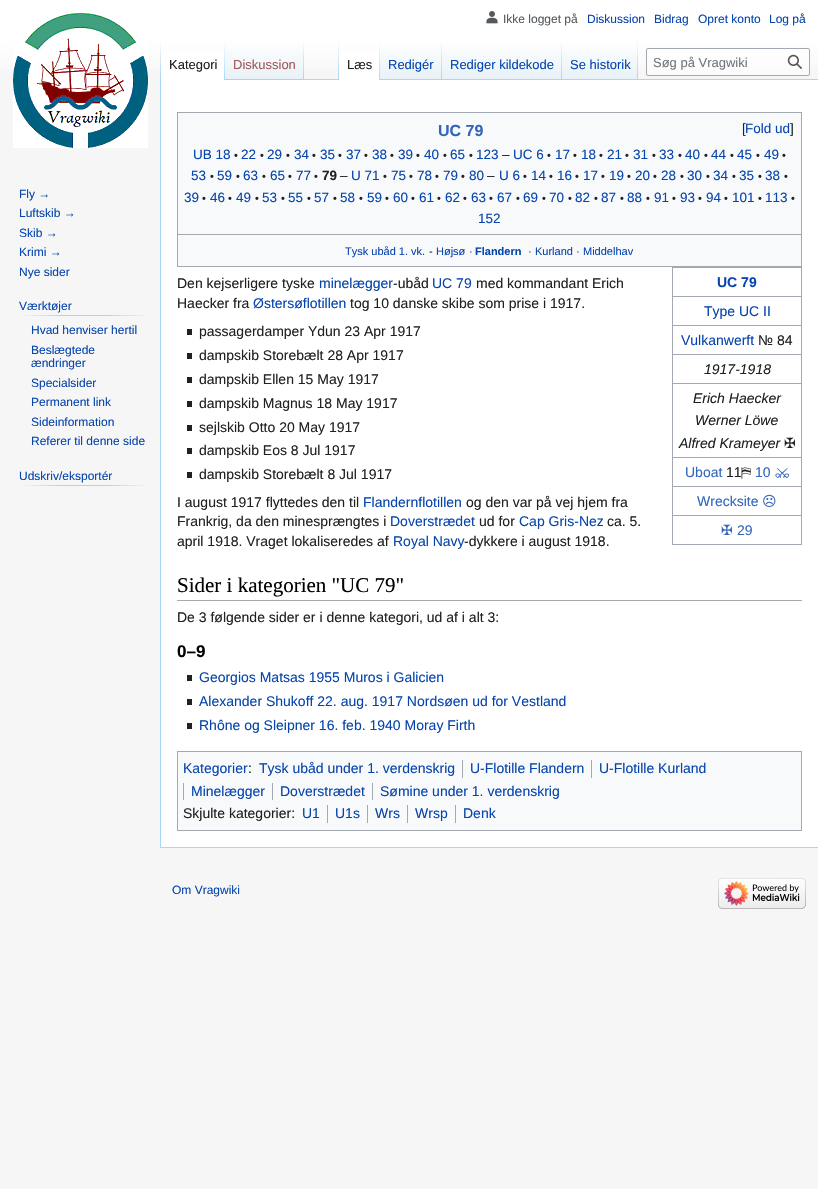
#include "include/core/SkBlurTypes.h"
#include "include/core/SkCanvas.h"
#include "include/core/SkData.h"
#include "include/core/SkFont.h"
#include "include/core/SkFontMgr.h"
#include "include/core/SkImage.h"
#include "include/core/SkMaskFilter.h"
#include "include/core/SkPaint.h"
#include "include/core/SkPathBuilder.h"
#include "include/core/SkTextBlob.h"
#include "include/effects/SkDashPathEffect.h"
#include "include/effects/SkGradientShader.h"
#include "include/utils/SkParsePath.h"

extern sk_sp<SkFontMgr> fontMgr;

static SkFont font(const char* family, int weight, float size, bool italic = false) {
    SkFontStyle style(weight, SkFontStyle::kNormal_Width,
        italic ? SkFontStyle::kItalic_Slant : SkFontStyle::kUpright_Slant);
    SkFont result(fontMgr->matchFamilyStyle(family, style), size);
    result.setSubpixel(true);
    return result;
}

static void drawLabel(SkCanvas* canvas, const char* s, float x, float y, const SkFont& font, SkColor color) {
    SkPaint ink(SkColor4f::FromColor(color));
    ink.setAntiAlias(true);
    canvas->drawString(s, x, y, font, ink);
}

static void fillRect(SkCanvas* canvas, float x, float y, float w, float h, SkColor color) {
    SkPaint ink(SkColor4f::FromColor(color));
    ink.setAntiAlias(true);
    canvas->drawRect(SkRect::MakeXYWH(x, y, w, h), ink);
}

static void drawPhoto(SkCanvas* canvas, const char* path, float x, float y, float w, float h) {
    auto image = SkImages::DeferredFromEncodedData(SkData::MakeFromFileName(path));
    canvas->drawImageRect(image, SkRect::MakeXYWH(x, y, w, h), SkSamplingOptions());
}

void draw(SkCanvas* canvas) {
    SkPaint paint;
    paint.setAntiAlias(true);
    canvas->clear(0xFFF6F6F6);
    {
        const SkColor colors[] = {0xFFFFFFFF, 0xFFF6F6F6};
        const float stops[] = {0.5f, 1};
        const SkPoint ends[] = {{409, 0}, {409, 80}};
        paint.setShader(SkGradientShader::MakeLinear(ends, colors, stops, 2, SkTileMode::kClamp));
        paint.setAlpha(255);
    }
    canvas->drawRect(SkRect::MakeXYWH(0, 0, 818, 69), paint);
    drawPhoto(canvas, "assets/img1.png", 486, 11, 12, 13);
    SkFont font1 = font("Liberation Sans", 400, 12);
    drawLabel(canvas, "Ikke logget på", 503, 23, font1, 0xFF54595D);
    drawLabel(canvas, "Diskussion", 587, 23, font1, 0xFF0645AD);
    drawLabel(canvas, "Bidrag", 654, 23, font1, 0xFF0645AD);
    drawLabel(canvas, "Opret konto", 698, 23, font1, 0xFF0645AD);
    drawLabel(canvas, "Log på", 769, 23, font1, 0xFF0645AD);
    fillRect(canvas, 160, 847, 658, 1, 0xFFA7D7F9);
    fillRect(canvas, 160, 79, 1, 769, 0xFFA7D7F9);
    {
        const SkColor colors[] = {0x00A7D7F9, 0xFFA7D7F9};
        const float stops[] = {0, 1};
        const SkPoint ends[] = {{161, 40}, {161, 80}};
        paint.setShader(SkGradientShader::MakeLinear(ends, colors, stops, 2, SkTileMode::kClamp));
        paint.setAlpha(255);
    }
    canvas->drawRect(SkRect::MakeXYWH(160, 40, 1, 40), paint);
    fillRect(canvas, 161, 51, 63, 29, 0xFFFFFFFF);
    {
        const SkColor colors[] = {0xFFFFFFFF, 0xFFA7D7F9};
        const float stops[] = {0, 1};
        const SkPoint ends[] = {{225, 40}, {225, 80}};
        paint.setShader(SkGradientShader::MakeLinear(ends, colors, stops, 2, SkTileMode::kClamp));
        paint.setAlpha(255);
    }
    canvas->drawRect(SkRect::MakeXYWH(224, 40, 1, 40), paint);
    SkFont font2 = font("Liberation Sans", 400, 13);
    drawLabel(canvas, "Kategori", 169, 69, font2, 0xFF202122);
    {
        const SkColor colors[] = {0xFF77C1F6, 0xFFE8F2F8, 0xFFFFFFFF};
        const float stops[] = {0, 0.03f, 1};
        const SkPoint ends[] = {{265, 80}, {265, 40}};
        paint.setShader(SkGradientShader::MakeLinear(ends, colors, stops, 3, SkTileMode::kClamp));
        paint.setAlpha(255);
    }
    canvas->drawRect(SkRect::MakeXYWH(225, 46, 79, 34), paint);
    {
        const SkColor colors[] = {0x00A7D7F9, 0xFFA7D7F9};
        const float stops[] = {0, 1};
        const SkPoint ends[] = {{304, 40}, {304, 80}};
        paint.setShader(SkGradientShader::MakeLinear(ends, colors, stops, 2, SkTileMode::kClamp));
        paint.setAlpha(255);
    }
    canvas->drawRect(SkRect::MakeXYWH(303, 40, 1, 40), paint);
    drawLabel(canvas, "Diskussion", 233, 69, font2, 0xFFA55858);
    fillRect(canvas, 304, 79, 514, 1, 0xFFA7D7F9);
    {
        const SkColor colors[] = {0x00A7D7F9, 0xFFA7D7F9};
        const float stops[] = {0, 1};
        const SkPoint ends[] = {{339, 40}, {339, 80}};
        paint.setShader(SkGradientShader::MakeLinear(ends, colors, stops, 2, SkTileMode::kClamp));
        paint.setAlpha(255);
    }
    canvas->drawRect(SkRect::MakeXYWH(338, 40, 1, 40), paint);
    fillRect(canvas, 339, 51, 40, 29, 0xFFFFFFFF);
    {
        const SkColor colors[] = {0xFFFFFFFF, 0xFFA7D7F9};
        const float stops[] = {0, 1};
        const SkPoint ends[] = {{380, 40}, {380, 80}};
        paint.setShader(SkGradientShader::MakeLinear(ends, colors, stops, 2, SkTileMode::kClamp));
        paint.setAlpha(255);
    }
    canvas->drawRect(SkRect::MakeXYWH(379, 40, 1, 40), paint);
    drawLabel(canvas, "Læs", 347, 69, font2, 0xFF202122);
    {
        const SkColor colors[] = {0xFF77C1F6, 0xFFE8F2F8, 0xFFFFFFFF};
        const float stops[] = {0, 0.03f, 1};
        const SkPoint ends[] = {{411, 80}, {411, 40}};
        paint.setShader(SkGradientShader::MakeLinear(ends, colors, stops, 3, SkTileMode::kClamp));
        paint.setAlpha(255);
    }
    canvas->drawRect(SkRect::MakeXYWH(380, 46, 62, 33), paint);
    {
        const SkColor colors[] = {0x00A7D7F9, 0xFFA7D7F9};
        const float stops[] = {0, 1};
        const SkPoint ends[] = {{442, 40}, {442, 80}};
        paint.setShader(SkGradientShader::MakeLinear(ends, colors, stops, 2, SkTileMode::kClamp));
        paint.setAlpha(255);
    }
    canvas->drawRect(SkRect::MakeXYWH(441, 40, 1, 40), paint);
    drawLabel(canvas, "Redigér", 388, 69, font2, 0xFF0645AD);
    {
        const SkColor colors[] = {0xFF77C1F6, 0xFFE8F2F8, 0xFFFFFFFF};
        const float stops[] = {0, 0.03f, 1};
        const SkPoint ends[] = {{502, 80}, {502, 40}};
        paint.setShader(SkGradientShader::MakeLinear(ends, colors, stops, 3, SkTileMode::kClamp));
        paint.setAlpha(255);
    }
    canvas->drawRect(SkRect::MakeXYWH(442, 46, 120, 33), paint);
    {
        const SkColor colors[] = {0x00A7D7F9, 0xFFA7D7F9};
        const float stops[] = {0, 1};
        const SkPoint ends[] = {{562, 40}, {562, 80}};
        paint.setShader(SkGradientShader::MakeLinear(ends, colors, stops, 2, SkTileMode::kClamp));
        paint.setAlpha(255);
    }
    canvas->drawRect(SkRect::MakeXYWH(561, 40, 1, 40), paint);
    drawLabel(canvas, "Rediger kildekode", 450, 69, font2, 0xFF0645AD);
    {
        const SkColor colors[] = {0xFF77C1F6, 0xFFE8F2F8, 0xFFFFFFFF};
        const float stops[] = {0, 0.03f, 1};
        const SkPoint ends[] = {{600, 80}, {600, 40}};
        paint.setShader(SkGradientShader::MakeLinear(ends, colors, stops, 3, SkTileMode::kClamp));
        paint.setAlpha(255);
    }
    canvas->drawRect(SkRect::MakeXYWH(562, 46, 76, 33), paint);
    {
        const SkColor colors[] = {0x00A7D7F9, 0xFFA7D7F9};
        const float stops[] = {0, 1};
        const SkPoint ends[] = {{638, 40}, {638, 80}};
        paint.setShader(SkGradientShader::MakeLinear(ends, colors, stops, 2, SkTileMode::kClamp));
        paint.setAlpha(255);
    }
    canvas->drawRect(SkRect::MakeXYWH(637, 40, 1, 40), paint);
    drawLabel(canvas, "Se historik", 570, 69, font2, 0xFF0645AD);
    paint.setShader(nullptr);
    paint.setColor(0x80FFFFFF);
    canvas->drawRoundRect(SkRect::MakeXYWH(646.5f, 48.5f, 163, 27), 1.5f, 1.5f, paint);
    paint.setStroke(true);
    paint.setStrokeWidth(1);
    paint.setColor(0xFFA2A9B1);
    canvas->drawRoundRect(SkRect::MakeXYWH(646.5f, 48.5f, 163, 27), 1.5f, 1.5f, paint);
    drawLabel(canvas, "Søg på Vragwiki", 653, 67, font2, 0xFF72777D);
    drawPhoto(canvas, "assets/img2.png", 787, 54, 15, 15);
    drawPhoto(canvas, "assets/img3.png", 13, 13, 135, 135);
    drawLabel(canvas, "Fly →", 19, 198, font1, 0xFF0645AD);
    drawLabel(canvas, "Luftskib →", 19, 217, font1, 0xFF0645AD);
    drawLabel(canvas, "Skib →", 19, 237, font1, 0xFF0645AD);
    drawLabel(canvas, "Krimi →", 19, 256, font1, 0xFF0645AD);
    drawLabel(canvas, "Nye sider", 19, 276, font1, 0xFF0645AD);
    paint.setStroke(false);
    {
        const SkColor colors[] = {0xFFF6F6F6, 0xFFC8CCD1, 0xFFC8CCD1, 0xFFF6F6F6};
        const float stops[] = {0, 0.33f, 0.66f, 1};
        const SkPoint ends[] = {{19, 316}, {150, 316}};
        paint.setShader(SkGradientShader::MakeLinear(ends, colors, stops, 4, SkTileMode::kClamp));
        paint.setAlpha(255);
    }
    canvas->drawRect(SkRect::MakeXYWH(19, 315, 131, 1), paint);
    drawLabel(canvas, "Værktøjer", 19, 310, font1, 0xFF0645AD);
    drawLabel(canvas, "Hvad henviser hertil", 31, 334, font1, 0xFF0645AD);
    drawLabel(canvas, "Beslægtede", 31, 354, font1, 0xFF0645AD);
    drawLabel(canvas, "ændringer", 31, 367, font1, 0xFF0645AD);
    drawLabel(canvas, "Specialsider", 31, 387, font1, 0xFF0645AD);
    drawLabel(canvas, "Permanent link", 31, 406, font1, 0xFF0645AD);
    drawLabel(canvas, "Sideinformation", 31, 426, font1, 0xFF0645AD);
    drawLabel(canvas, "Referer til denne side", 31, 445, font1, 0xFF0645AD);
    {
        const SkColor colors[] = {0xFFF6F6F6, 0xFFC8CCD1, 0xFFC8CCD1, 0xFFF6F6F6};
        const float stops[] = {0, 0.33f, 0.66f, 1};
        const SkPoint ends[] = {{19, 486}, {150, 486}};
        paint.setShader(SkGradientShader::MakeLinear(ends, colors, stops, 4, SkTileMode::kClamp));
        paint.setAlpha(255);
    }
    canvas->drawRect(SkRect::MakeXYWH(19, 485, 131, 1), paint);
    drawLabel(canvas, "Udskriv/eksportér", 19, 480, font1, 0xFF0645AD);
    fillRect(canvas, 161, 80, 657, 767, 0xFFFFFFFF);
    paint.setShader(nullptr);
    paint.setColor(0xFFF8F9FA);
    canvas->drawRect(SkRect::MakeXYWH(177.5f, 112.5f, 624, 122), paint);
    paint.setStroke(true);
    paint.setColor(0xFFA2A9B1);
    canvas->drawRect(SkRect::MakeXYWH(177.5f, 112.5f, 624, 122), paint);
    SkFont font3 = font("Liberation Sans", 700, 16);
    drawLabel(canvas, "UC 79", 438, 136, font3, 0xFF3366BB);
    SkFont font4 = font("Liberation Sans", 400, 13.5f);
    drawLabel(canvas, "[", 742, 133, font4, 0xFF202122);
    drawLabel(canvas, "Fold ud", 745, 133, font4, 0xFF0645AD);
    drawLabel(canvas, "]", 790, 133, font4, 0xFF202122);
    drawLabel(canvas, "UB 18", 193, 159, font4, 0xFF0645AD);
    SkFont font5 = font("Liberation Sans", 400, 11);
    drawLabel(canvas, "•", 234, 159, font5, 0xFF202122);
    drawLabel(canvas, "22", 241, 159, font4, 0xFF0645AD);
    drawLabel(canvas, "•", 260, 159, font5, 0xFF202122);
    drawLabel(canvas, "29", 267, 159, font4, 0xFF0645AD);
    drawLabel(canvas, "•", 286, 159, font5, 0xFF202122);
    drawLabel(canvas, "34", 294, 159, font4, 0xFF0645AD);
    drawLabel(canvas, "•", 312, 159, font5, 0xFF202122);
    drawLabel(canvas, "35", 320, 159, font4, 0xFF0645AD);
    drawLabel(canvas, "•", 338, 159, font5, 0xFF202122);
    drawLabel(canvas, "37", 346, 159, font4, 0xFF0645AD);
    drawLabel(canvas, "•", 364, 159, font5, 0xFF202122);
    drawLabel(canvas, "38", 372, 159, font4, 0xFF0645AD);
    drawLabel(canvas, "•", 390, 159, font5, 0xFF202122);
    drawLabel(canvas, "39", 398, 159, font4, 0xFF0645AD);
    drawLabel(canvas, "•", 416, 159, font5, 0xFF202122);
    drawLabel(canvas, "40", 424, 159, font4, 0xFF0645AD);
    drawLabel(canvas, "•", 443, 159, font5, 0xFF202122);
    drawLabel(canvas, "65", 450, 159, font4, 0xFF0645AD);
    drawLabel(canvas, "•", 469, 159, font5, 0xFF202122);
    drawLabel(canvas, "123", 476, 159, font4, 0xFF0645AD);
    drawLabel(canvas, "–", 502, 159, font4, 0xFF202122);
    drawLabel(canvas, "UC 6", 513, 159, font4, 0xFF0645AD);
    drawLabel(canvas, "•", 547, 159, font5, 0xFF202122);
    drawLabel(canvas, "17", 555, 159, font4, 0xFF0645AD);
    drawLabel(canvas, "•", 573, 159, font5, 0xFF202122);
    drawLabel(canvas, "18", 581, 159, font4, 0xFF0645AD);
    drawLabel(canvas, "•", 599, 159, font5, 0xFF202122);
    drawLabel(canvas, "21", 607, 159, font4, 0xFF0645AD);
    drawLabel(canvas, "•", 625, 159, font5, 0xFF202122);
    drawLabel(canvas, "31", 633, 159, font4, 0xFF0645AD);
    drawLabel(canvas, "•", 652, 159, font5, 0xFF202122);
    drawLabel(canvas, "33", 659, 159, font4, 0xFF0645AD);
    drawLabel(canvas, "•", 678, 159, font5, 0xFF202122);
    drawLabel(canvas, "40", 685, 159, font4, 0xFF0645AD);
    drawLabel(canvas, "•", 704, 159, font5, 0xFF202122);
    drawLabel(canvas, "44", 711, 159, font4, 0xFF0645AD);
    drawLabel(canvas, "•", 730, 159, font5, 0xFF202122);
    drawLabel(canvas, "45", 737, 159, font4, 0xFF0645AD);
    drawLabel(canvas, "•", 756, 159, font5, 0xFF202122);
    drawLabel(canvas, "49", 764, 159, font4, 0xFF0645AD);
    drawLabel(canvas, "•", 782, 159, font5, 0xFF202122);
    drawLabel(canvas, "53", 191, 180, font4, 0xFF0645AD);
    drawLabel(canvas, "•", 210, 180, font5, 0xFF202122);
    drawLabel(canvas, "59", 217, 180, font4, 0xFF0645AD);
    drawLabel(canvas, "•", 236, 180, font5, 0xFF202122);
    drawLabel(canvas, "63", 243, 180, font4, 0xFF0645AD);
    drawLabel(canvas, "•", 262, 180, font5, 0xFF202122);
    drawLabel(canvas, "65", 270, 180, font4, 0xFF0645AD);
    drawLabel(canvas, "•", 288, 180, font5, 0xFF202122);
    drawLabel(canvas, "77", 296, 180, font4, 0xFF0645AD);
    drawLabel(canvas, "•", 314, 180, font5, 0xFF202122);
    SkFont font6 = font("Liberation Sans", 700, 13.5f);
    drawLabel(canvas, "79", 322, 180, font6, 0xFF202122);
    drawLabel(canvas, "–", 340, 180, font4, 0xFF202122);
    drawLabel(canvas, "U 71", 351, 180, font4, 0xFF0645AD);
    drawLabel(canvas, "•", 383, 180, font5, 0xFF202122);
    drawLabel(canvas, "75", 391, 180, font4, 0xFF0645AD);
    drawLabel(canvas, "•", 409, 180, font5, 0xFF202122);
    drawLabel(canvas, "78", 417, 180, font4, 0xFF0645AD);
    drawLabel(canvas, "•", 435, 180, font5, 0xFF202122);
    drawLabel(canvas, "79", 443, 180, font4, 0xFF0645AD);
    drawLabel(canvas, "•", 461, 180, font5, 0xFF202122);
    drawLabel(canvas, "80", 469, 180, font4, 0xFF0645AD);
    drawLabel(canvas, "–", 487, 180, font4, 0xFF202122);
    drawLabel(canvas, "U 6", 499, 180, font4, 0xFF0645AD);
    drawLabel(canvas, "•", 523, 180, font5, 0xFF202122);
    drawLabel(canvas, "14", 531, 180, font4, 0xFF0645AD);
    drawLabel(canvas, "•", 549, 180, font5, 0xFF202122);
    drawLabel(canvas, "16", 557, 180, font4, 0xFF0645AD);
    drawLabel(canvas, "•", 575, 180, font5, 0xFF202122);
    drawLabel(canvas, "17", 583, 180, font4, 0xFF0645AD);
    drawLabel(canvas, "•", 601, 180, font5, 0xFF202122);
    drawLabel(canvas, "19", 609, 180, font4, 0xFF0645AD);
    drawLabel(canvas, "•", 627, 180, font5, 0xFF202122);
    drawLabel(canvas, "20", 635, 180, font4, 0xFF0645AD);
    drawLabel(canvas, "•", 653, 180, font5, 0xFF202122);
    drawLabel(canvas, "28", 661, 180, font4, 0xFF0645AD);
    drawLabel(canvas, "•", 680, 180, font5, 0xFF202122);
    drawLabel(canvas, "30", 687, 180, font4, 0xFF0645AD);
    drawLabel(canvas, "•", 706, 180, font5, 0xFF202122);
    drawLabel(canvas, "34", 713, 180, font4, 0xFF0645AD);
    drawLabel(canvas, "•", 732, 180, font5, 0xFF202122);
    drawLabel(canvas, "35", 739, 180, font4, 0xFF0645AD);
    drawLabel(canvas, "•", 758, 180, font5, 0xFF202122);
    drawLabel(canvas, "38", 765, 180, font4, 0xFF0645AD);
    drawLabel(canvas, "•", 784, 180, font5, 0xFF202122);
    drawLabel(canvas, "39", 184, 202, font4, 0xFF0645AD);
    drawLabel(canvas, "•", 202, 202, font5, 0xFF202122);
    drawLabel(canvas, "46", 210, 202, font4, 0xFF0645AD);
    drawLabel(canvas, "•", 228, 202, font5, 0xFF202122);
    drawLabel(canvas, "49", 236, 202, font4, 0xFF0645AD);
    drawLabel(canvas, "•", 255, 202, font5, 0xFF202122);
    drawLabel(canvas, "53", 262, 202, font4, 0xFF0645AD);
    drawLabel(canvas, "•", 281, 202, font5, 0xFF202122);
    drawLabel(canvas, "55", 288, 202, font4, 0xFF0645AD);
    drawLabel(canvas, "•", 307, 202, font5, 0xFF202122);
    drawLabel(canvas, "57", 314, 202, font4, 0xFF0645AD);
    drawLabel(canvas, "•", 333, 202, font5, 0xFF202122);
    drawLabel(canvas, "58", 340, 202, font4, 0xFF0645AD);
    drawLabel(canvas, "•", 359, 202, font5, 0xFF202122);
    drawLabel(canvas, "59", 367, 202, font4, 0xFF0645AD);
    drawLabel(canvas, "•", 385, 202, font5, 0xFF202122);
    drawLabel(canvas, "60", 393, 202, font4, 0xFF0645AD);
    drawLabel(canvas, "•", 411, 202, font5, 0xFF202122);
    drawLabel(canvas, "61", 419, 202, font4, 0xFF0645AD);
    drawLabel(canvas, "•", 437, 202, font5, 0xFF202122);
    drawLabel(canvas, "62", 445, 202, font4, 0xFF0645AD);
    drawLabel(canvas, "•", 463, 202, font5, 0xFF202122);
    drawLabel(canvas, "63", 471, 202, font4, 0xFF0645AD);
    drawLabel(canvas, "•", 489, 202, font5, 0xFF202122);
    drawLabel(canvas, "67", 497, 202, font4, 0xFF0645AD);
    drawLabel(canvas, "•", 516, 202, font5, 0xFF202122);
    drawLabel(canvas, "69", 523, 202, font4, 0xFF0645AD);
    drawLabel(canvas, "•", 542, 202, font5, 0xFF202122);
    drawLabel(canvas, "70", 549, 202, font4, 0xFF0645AD);
    drawLabel(canvas, "•", 568, 202, font5, 0xFF202122);
    drawLabel(canvas, "82", 575, 202, font4, 0xFF0645AD);
    drawLabel(canvas, "•", 594, 202, font5, 0xFF202122);
    drawLabel(canvas, "87", 601, 202, font4, 0xFF0645AD);
    drawLabel(canvas, "•", 620, 202, font5, 0xFF202122);
    drawLabel(canvas, "88", 627, 202, font4, 0xFF0645AD);
    drawLabel(canvas, "•", 646, 202, font5, 0xFF202122);
    drawLabel(canvas, "91", 654, 202, font4, 0xFF0645AD);
    drawLabel(canvas, "•", 672, 202, font5, 0xFF202122);
    drawLabel(canvas, "93", 680, 202, font4, 0xFF0645AD);
    drawLabel(canvas, "•", 698, 202, font5, 0xFF202122);
    drawLabel(canvas, "94", 706, 202, font4, 0xFF0645AD);
    drawLabel(canvas, "•", 724, 202, font5, 0xFF202122);
    drawLabel(canvas, "101", 732, 202, font4, 0xFF0645AD);
    drawLabel(canvas, "•", 758, 202, font5, 0xFF202122);
    drawLabel(canvas, "113", 765, 202, font4, 0xFF0645AD);
    drawLabel(canvas, "•", 791, 202, font5, 0xFF202122);
    drawLabel(canvas, "152", 478, 223, font4, 0xFF0645AD);
    fillRect(canvas, 178, 235, 623, 31, 0xFFF8F9FA);
    fillRect(canvas, 801, 235, 1, 32, 0xFFA2A9B1);
    fillRect(canvas, 177, 266, 625, 1, 0xFFA2A9B1);
    fillRect(canvas, 177, 235, 1, 32, 0xFFA2A9B1);
    drawLabel(canvas, "Tysk ubåd 1. vk.", 345, 255, font5, 0xFF0645AD);
    drawLabel(canvas, "-", 429, 255, font5, 0xFF202122);
    drawLabel(canvas, "Højsø", 436, 255, font5, 0xFF0645AD);
    drawLabel(canvas, "·", 469, 255, font5, 0xFF202122);
    SkFont font7 = font("Liberation Sans", 700, 11);
    drawLabel(canvas, "Flandern", 475, 255, font7, 0xFF0645AD);
    drawLabel(canvas, "·", 528, 255, font5, 0xFF202122);
    drawLabel(canvas, "Kurland", 535, 255, font5, 0xFF0645AD);
    drawLabel(canvas, "·", 576, 255, font5, 0xFF202122);
    drawLabel(canvas, "Middelhav", 583, 255, font5, 0xFF0645AD);
    SkFont font8 = font("Liberation Sans", 400, 14);
    drawLabel(canvas, "Den kejserligere tyske", 177, 288, font8, 0xFF202122);
    drawLabel(canvas, "minelægger", 319, 288, font8, 0xFF0645AD);
    drawLabel(canvas, "-ubåd", 393, 288, font8, 0xFF202122);
    drawLabel(canvas, "UC 79", 432, 288, font8, 0xFF0645AD);
    drawLabel(canvas, "med kommandant Erich", 476, 288, font8, 0xFF202122);
    drawLabel(canvas, "Haecker fra", 177, 308, font8, 0xFF202122);
    drawLabel(canvas, "Østersøflotillen", 253, 308, font8, 0xFF0645AD);
    drawLabel(canvas, "tog 10 danske skibe som prise i 1917.", 350, 308, font8, 0xFF202122);
    fillRect(canvas, 672, 267, 130, 1, 0xFFA2A9B1);
    fillRect(canvas, 801, 267, 1, 278, 0xFFA2A9B1);
    fillRect(canvas, 672, 544, 130, 1, 0xFFA2A9B1);
    fillRect(canvas, 672, 267, 1, 278, 0xFFA2A9B1);
    SkFont font9 = font("Liberation Sans", 700, 14);
    drawLabel(canvas, "UC 79", 717, 287, font9, 0xFF0645AD);
    fillRect(canvas, 672, 296, 130, 1, 0xFFA2A9B1);
    drawLabel(canvas, "Type UC II", 704, 316, font8, 0xFF0645AD);
    fillRect(canvas, 672, 325, 130, 1, 0xFFA2A9B1);
    drawLabel(canvas, "Vulkanwerft", 681, 345, font8, 0xFF0645AD);
    drawLabel(canvas, "№ 84", 758, 345, font8, 0xFF202122);
    fillRect(canvas, 672, 354, 130, 1, 0xFFA2A9B1);
    SkFont font10 = font("Liberation Sans", 400, 14, true);
    drawLabel(canvas, "1917-1918", 704, 374, font10, 0xFF202122);
    fillRect(canvas, 672, 383, 130, 1, 0xFFA2A9B1);
    drawLabel(canvas, "Erich Haecker", 693, 403, font10, 0xFF202122);
    drawLabel(canvas, "Werner Löwe", 695, 425, font10, 0xFF202122);
    drawLabel(canvas, "Alfred Krameyer", 679, 448, font10, 0xFF202122);
    SkFont font11 = font("DejaVu Sans", 400, 14);
    drawLabel(canvas, "✠", 784, 448, font11, 0xFF202122);
    fillRect(canvas, 672, 457, 130, 1, 0xFFA2A9B1);
    drawLabel(canvas, "Uboat", 685, 477, font8, 0xFF3366BB);
    drawLabel(canvas, "11", 726, 477, font8, 0xFF202122);
    SkFont font12 = font("FreeSerif", 400, 14);
    drawLabel(canvas, "⛿", 741, 477, font12, 0xFF202122);
    drawLabel(canvas, "10", 755, 477, font8, 0xFF3366BB);
    drawLabel(canvas, "⚔", 775, 477, font12, 0xFF3366BB);
    fillRect(canvas, 672, 486, 130, 1, 0xFFA2A9B1);
    drawLabel(canvas, "Wrecksite", 697, 506, font8, 0xFF3366BB);
    drawLabel(canvas, "☹", 762, 506, font11, 0xFF3366BB);
    fillRect(canvas, 672, 515, 130, 1, 0xFFA2A9B1);
    drawLabel(canvas, "✠", 721, 535, font11, 0xFF3366BB);
    drawLabel(canvas, "29", 737, 535, font8, 0xFF3366BB);
    fillRect(canvas, 187, 329, 5, 6, 0xFF202122);
    drawLabel(canvas, "passagerdamper Ydun 23 Apr 1917", 199, 336, font8, 0xFF202122);
    fillRect(canvas, 187, 353, 5, 6, 0xFF202122);
    drawLabel(canvas, "dampskib Storebælt 28 Apr 1917", 199, 360, font8, 0xFF202122);
    fillRect(canvas, 187, 377, 5, 6, 0xFF202122);
    drawLabel(canvas, "dampskib Ellen 15 May 1917", 199, 384, font8, 0xFF202122);
    fillRect(canvas, 187, 401, 5, 6, 0xFF202122);
    drawLabel(canvas, "dampskib Magnus 18 May 1917", 199, 408, font8, 0xFF202122);
    fillRect(canvas, 187, 425, 5, 6, 0xFF202122);
    drawLabel(canvas, "sejlskib Otto 20 May 1917", 199, 432, font8, 0xFF202122);
    fillRect(canvas, 187, 448, 5, 6, 0xFF202122);
    drawLabel(canvas, "dampskib Eos 8 Jul 1917", 199, 455, font8, 0xFF202122);
    fillRect(canvas, 187, 472, 5, 6, 0xFF202122);
    drawLabel(canvas, "dampskib Storebælt 8 Jul 1917", 199, 479, font8, 0xFF202122);
    drawLabel(canvas, "I august 1917 flyttedes den til", 177, 507, font8, 0xFF202122);
    drawLabel(canvas, "Flandernflotillen", 363, 507, font8, 0xFF0645AD);
    drawLabel(canvas, "og den var på vej hjem fra", 466, 507, font8, 0xFF202122);
    drawLabel(canvas, "Frankrig, da den minesprængtes i", 177, 526, font8, 0xFF202122);
    drawLabel(canvas, "Doverstrædet", 390, 526, font8, 0xFF0645AD);
    drawLabel(canvas, "ud for", 479, 526, font8, 0xFF202122);
    drawLabel(canvas, "Cap Gris-Nez", 519, 526, font8, 0xFF0645AD);
    drawLabel(canvas, "ca. 5.", 607, 526, font8, 0xFF202122);
    drawLabel(canvas, "april 1918. Vraget lokaliseredes af", 177, 546, font8, 0xFF202122);
    drawLabel(canvas, "Royal Navy", 393, 546, font8, 0xFF0645AD);
    drawLabel(canvas, "-dykkere i august 1918.", 464, 546, font8, 0xFF202122);
    fillRect(canvas, 177, 600, 625, 1, 0xFFAAAAAA);
    SkFont font13 = font("Liberation Serif", 400, 21);
    drawLabel(canvas, "Sider i kategorien \"UC 79\"", 177, 592, font13, 0xFF000000);
    drawLabel(canvas, "De 3 følgende sider er i denne kategori, ud af i alt 3:", 177, 622, font8, 0xFF202122);
    SkFont font14 = font("Liberation Sans", 700, 17);
    drawLabel(canvas, "0–9", 177, 657, font14, 0xFF000000);
    fillRect(canvas, 187, 675, 5, 6, 0xFF202122);
    drawLabel(canvas, "Georgios Matsas 1955 Muros i Galicien", 199, 682, font8, 0xFF0645AD);
    fillRect(canvas, 187, 699, 5, 6, 0xFF202122);
    drawLabel(canvas, "Alexander Shukoff 22. aug. 1917 Nordsøen ud for Vestland", 199, 706, font8, 0xFF0645AD);
    fillRect(canvas, 187, 723, 5, 6, 0xFF202122);
    drawLabel(canvas, "Rhône og Sleipner 16. feb. 1940 Moray Firth", 199, 730, font8, 0xFF0645AD);
    paint.setStroke(false);
    paint.setColor(0xFFF8F9FA);
    canvas->drawRect(SkRect::MakeXYWH(177.5f, 751.5f, 624, 79), paint);
    paint.setStroke(true);
    paint.setColor(0xFFA2A9B1);
    canvas->drawRect(SkRect::MakeXYWH(177.5f, 751.5f, 624, 79), paint);
    drawLabel(canvas, "Tysk ubåd under 1. verdenskrig", 259, 773, font8, 0xFF0645AD);
    fillRect(canvas, 462, 760, 1, 18, 0xFFA2A9B1);
    drawLabel(canvas, "U-Flotille Flandern", 470, 773, font8, 0xFF0645AD);
    fillRect(canvas, 591, 760, 1, 18, 0xFFA2A9B1);
    drawLabel(canvas, "U-Flotille Kurland", 599, 773, font8, 0xFF0645AD);
    fillRect(canvas, 183, 783, 1, 17, 0xFFA2A9B1);
    drawLabel(canvas, "Minelægger", 191, 796, font8, 0xFF0645AD);
    fillRect(canvas, 272, 783, 1, 17, 0xFFA2A9B1);
    drawLabel(canvas, "Doverstrædet", 280, 796, font8, 0xFF0645AD);
    fillRect(canvas, 372, 783, 1, 17, 0xFFA2A9B1);
    drawLabel(canvas, "Sømine under 1. verdenskrig", 380, 796, font8, 0xFF0645AD);
    drawLabel(canvas, "Kategorier", 183, 773, font8, 0xFF0645AD);
    drawLabel(canvas, ":", 248, 773, font8, 0xFF202122);
    drawLabel(canvas, "Skjulte kategorier:", 183, 818, font8, 0xFF202122);
    drawLabel(canvas, "U1", 302, 818, font8, 0xFF0645AD);
    fillRect(canvas, 327, 805, 1, 18, 0xFFA2A9B1);
    drawLabel(canvas, "U1s", 335, 818, font8, 0xFF0645AD);
    fillRect(canvas, 367, 805, 1, 18, 0xFFA2A9B1);
    drawLabel(canvas, "Wrs", 375, 818, font8, 0xFF0645AD);
    fillRect(canvas, 407, 805, 1, 18, 0xFFA2A9B1);
    drawLabel(canvas, "Wrsp", 415, 818, font8, 0xFF0645AD);
    fillRect(canvas, 455, 805, 1, 18, 0xFFA2A9B1);
    drawLabel(canvas, "Denk", 463, 818, font8, 0xFF0645AD);
    drawLabel(canvas, "Om Vragwiki", 172, 894, font1, 0xFF0645AD);
    drawPhoto(canvas, "assets/img4.png", 718, 878, 88, 31);
}
